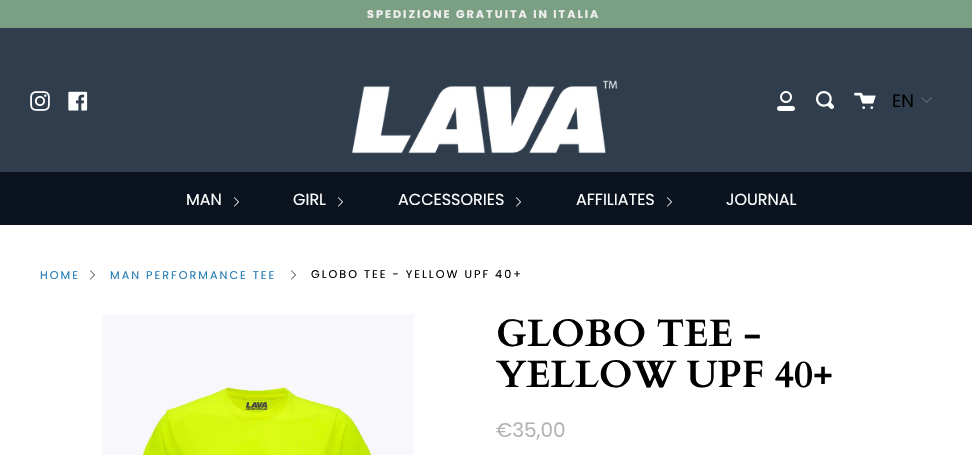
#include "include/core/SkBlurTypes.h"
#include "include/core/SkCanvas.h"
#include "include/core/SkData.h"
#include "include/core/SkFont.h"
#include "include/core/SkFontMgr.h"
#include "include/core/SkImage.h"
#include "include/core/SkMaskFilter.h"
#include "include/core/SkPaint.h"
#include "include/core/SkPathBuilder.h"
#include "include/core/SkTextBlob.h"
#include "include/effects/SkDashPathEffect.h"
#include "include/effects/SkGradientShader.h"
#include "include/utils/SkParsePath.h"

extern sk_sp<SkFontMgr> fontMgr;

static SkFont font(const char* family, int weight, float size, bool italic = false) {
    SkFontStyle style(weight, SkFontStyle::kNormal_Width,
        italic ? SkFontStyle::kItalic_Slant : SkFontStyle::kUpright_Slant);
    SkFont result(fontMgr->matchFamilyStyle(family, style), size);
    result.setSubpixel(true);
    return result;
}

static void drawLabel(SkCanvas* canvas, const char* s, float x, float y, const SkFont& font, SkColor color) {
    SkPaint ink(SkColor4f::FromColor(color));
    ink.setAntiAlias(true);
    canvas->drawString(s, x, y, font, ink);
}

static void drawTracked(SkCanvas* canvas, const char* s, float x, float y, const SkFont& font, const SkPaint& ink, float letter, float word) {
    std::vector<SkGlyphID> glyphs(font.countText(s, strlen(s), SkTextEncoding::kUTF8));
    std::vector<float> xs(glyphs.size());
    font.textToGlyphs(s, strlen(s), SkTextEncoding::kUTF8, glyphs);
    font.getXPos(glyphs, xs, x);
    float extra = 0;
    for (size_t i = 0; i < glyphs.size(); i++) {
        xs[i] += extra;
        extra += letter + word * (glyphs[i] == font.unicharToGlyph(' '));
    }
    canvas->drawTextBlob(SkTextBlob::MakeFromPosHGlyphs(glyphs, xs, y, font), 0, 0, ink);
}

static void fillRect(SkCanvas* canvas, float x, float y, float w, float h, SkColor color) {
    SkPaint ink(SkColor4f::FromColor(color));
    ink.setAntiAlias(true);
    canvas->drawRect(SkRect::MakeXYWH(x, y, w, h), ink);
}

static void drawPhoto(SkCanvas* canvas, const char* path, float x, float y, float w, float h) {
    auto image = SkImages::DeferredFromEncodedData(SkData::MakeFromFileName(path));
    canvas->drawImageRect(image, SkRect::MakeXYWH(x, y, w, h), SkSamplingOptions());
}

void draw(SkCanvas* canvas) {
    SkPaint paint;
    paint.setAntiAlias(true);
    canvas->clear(0xFFFFFFFF);
    fillRect(canvas, 0, 0, 972, 28, 0xFF7A9F82);
    SkFont font1 = font("Poppins", 700, 11.2f);
    paint.setColor(0xFFEEEEEE);
    drawTracked(canvas, "SPEDIZIONE GRATUITA IN ITALIA", 367, 18, font1, paint, 2, 0);
    fillRect(canvas, 0, 28, 972, 144, 0xFF2F3D4C);
    drawPhoto(canvas, "assets/img1.png", 30, 91, 20, 20);
    drawPhoto(canvas, "assets/img2.png", 68, 91, 20, 20);
    drawPhoto(canvas, "assets/img3.png", 352, 80, 266, 74);
    drawPhoto(canvas, "assets/img4.png", 777, 91, 18, 20);
    drawPhoto(canvas, "assets/img5.png", 816, 91, 18, 18);
    drawPhoto(canvas, "assets/img6.png", 854, 92, 22, 17);
    drawPhoto(canvas, "assets/img7.png", 921, 97, 11, 6);
    SkFont font2 = font("Poppins", 400, 18);
    drawLabel(canvas, "EN", 892, 107, font2, 0xFF000000);
    fillRect(canvas, 0, 172, 972, 53, 0xFF0B131E);
    SkFont font3 = font("Poppins", 400, 16);
    drawLabel(canvas, "MAN", 186, 205, font3, 0xFFFFFFFF);
    drawPhoto(canvas, "assets/img8.png", 234, 197, 5, 10);
    drawLabel(canvas, "GIRL", 293, 205, font3, 0xFFFFFFFF);
    drawPhoto(canvas, "assets/img8.png", 338, 197, 5, 10);
    drawLabel(canvas, "ACCESSORIES", 398, 205, font3, 0xFFFFFFFF);
    drawPhoto(canvas, "assets/img8.png", 516, 197, 5, 10);
    drawLabel(canvas, "AFFILIATES", 576, 205, font3, 0xFFFFFFFF);
    drawPhoto(canvas, "assets/img8.png", 667, 197, 5, 10);
    drawLabel(canvas, "JOURNAL", 726, 205, font3, 0xFFFFFFFF);
    SkFont font4 = font("Poppins", 400, 11.2f);
    paint.setColor(0xFF227BB4);
    drawTracked(canvas, "HOME", 40, 279, font4, paint, 2, 0);
    drawPhoto(canvas, "assets/img9.png", 90, 270, 5, 10);
    drawTracked(canvas, "MAN PERFORMANCE TEE", 110, 279, font4, paint, 2, 0);
    drawPhoto(canvas, "assets/img9.png", 291, 270, 5, 10);
    paint.setColor(0xFF000000);
    drawTracked(canvas, "GLOBO TEE - YELLOW UPF 40+", 311, 278, font4, paint, 2, 0);
    drawPhoto(canvas, "assets/img10.png", 102, 314, 312, 141);
    SkFont font5 = font("Cardo", 700, 38);
    drawLabel(canvas, "GLOBO TEE -", 496, 346, font5, 0xFF000000);
    drawLabel(canvas, "YELLOW UPF 40+", 496, 387, font5, 0xFF000000);
    SkFont font6 = font("Poppins", 400, 20);
    drawLabel(canvas, "€35,00", 496, 437, font6, 0xFFB3B3B3);
}
